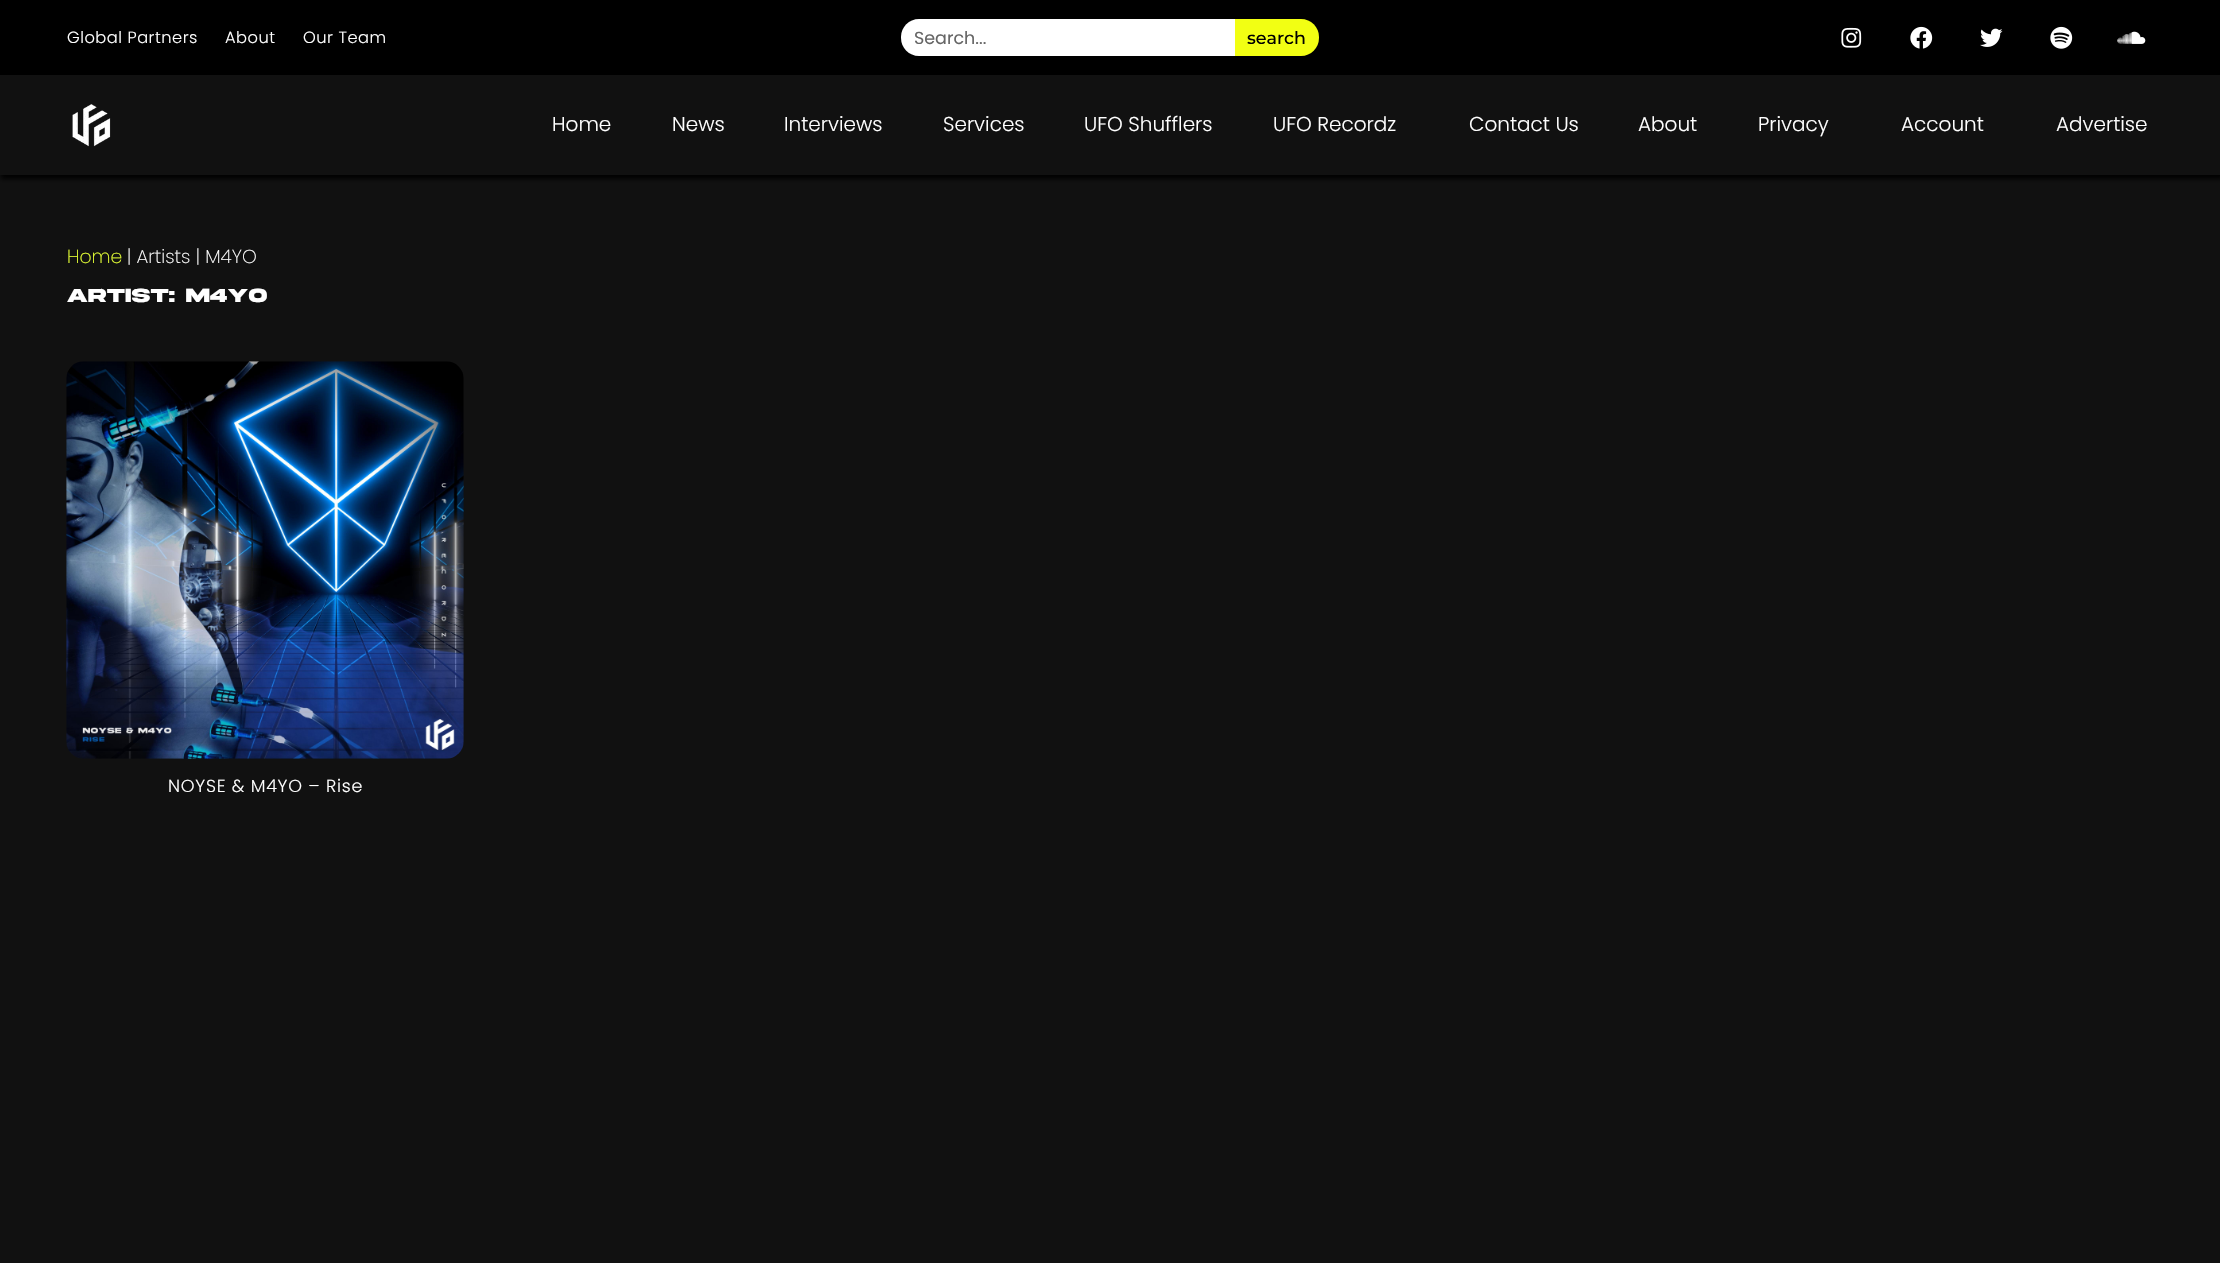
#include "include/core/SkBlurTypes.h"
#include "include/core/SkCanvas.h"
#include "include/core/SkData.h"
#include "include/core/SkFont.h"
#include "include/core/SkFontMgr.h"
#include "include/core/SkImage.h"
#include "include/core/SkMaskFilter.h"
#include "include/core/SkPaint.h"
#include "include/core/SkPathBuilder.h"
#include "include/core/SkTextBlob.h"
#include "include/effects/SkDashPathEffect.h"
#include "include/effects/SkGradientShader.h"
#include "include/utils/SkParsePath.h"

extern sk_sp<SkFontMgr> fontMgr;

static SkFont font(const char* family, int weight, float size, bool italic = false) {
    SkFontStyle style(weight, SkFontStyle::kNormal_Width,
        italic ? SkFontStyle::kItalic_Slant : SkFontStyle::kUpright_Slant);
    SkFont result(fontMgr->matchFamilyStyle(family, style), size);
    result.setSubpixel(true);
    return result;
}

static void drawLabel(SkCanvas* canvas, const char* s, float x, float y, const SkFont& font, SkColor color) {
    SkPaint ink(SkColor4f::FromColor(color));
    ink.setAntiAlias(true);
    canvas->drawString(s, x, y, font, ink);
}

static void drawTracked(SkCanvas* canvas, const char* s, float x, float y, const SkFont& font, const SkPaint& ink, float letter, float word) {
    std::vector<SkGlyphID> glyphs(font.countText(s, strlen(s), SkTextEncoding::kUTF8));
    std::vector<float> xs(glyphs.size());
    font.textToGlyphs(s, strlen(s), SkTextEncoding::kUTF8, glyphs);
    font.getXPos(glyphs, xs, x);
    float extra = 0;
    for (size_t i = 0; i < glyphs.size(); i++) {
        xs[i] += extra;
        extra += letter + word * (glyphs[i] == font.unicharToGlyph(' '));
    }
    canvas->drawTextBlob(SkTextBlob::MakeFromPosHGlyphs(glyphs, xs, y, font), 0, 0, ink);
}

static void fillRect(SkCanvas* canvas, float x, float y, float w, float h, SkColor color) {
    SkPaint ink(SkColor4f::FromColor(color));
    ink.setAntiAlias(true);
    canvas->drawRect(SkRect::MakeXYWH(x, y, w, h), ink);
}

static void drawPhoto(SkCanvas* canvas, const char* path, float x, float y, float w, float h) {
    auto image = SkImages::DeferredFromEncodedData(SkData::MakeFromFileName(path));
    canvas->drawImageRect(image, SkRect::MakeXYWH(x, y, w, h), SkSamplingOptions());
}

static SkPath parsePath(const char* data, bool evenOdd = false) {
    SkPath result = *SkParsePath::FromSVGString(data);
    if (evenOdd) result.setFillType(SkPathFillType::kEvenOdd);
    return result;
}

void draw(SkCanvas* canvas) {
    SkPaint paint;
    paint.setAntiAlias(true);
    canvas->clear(0xFF111111);
    canvas->save();
    canvas->clipRect(SkRect::MakeXYWH(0, 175, 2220, 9));
    paint.setColor(0xFF000000);
    paint.setMaskFilter(SkMaskFilter::MakeBlur(kNormal_SkBlurStyle, 2.5f));
    canvas->drawRect(SkRect::MakeXYWH(1, 76, 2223, 103), paint);
    paint.setMaskFilter(nullptr);
    canvas->restore();
    fillRect(canvas, 0, 0, 2220, 75, 0xFF000000);
    SkFont font1 = font("Poppins", 300, 16.25f);
    paint.setColor(0xFFFFFFFF);
    drawTracked(canvas, "Global Partners", 67, 43, font1, paint, 0.5f, 0);
    drawTracked(canvas, "About", 225, 43, font1, paint, 0.5f, 0);
    drawTracked(canvas, "Our Team", 303, 43, font1, paint, 0.5f, 0);
    canvas->drawPath(parsePath("M919 19H1235V56H919C909 56 901 48 901 38V37C901 27 909 19 919 19Z"), paint);
    SkFont font2 = font("Poppins", 400, 17.5f);
    drawLabel(canvas, "Search...", 914, 44, font2, 0xFF666666);
    paint.setColor(0xFFF2FF13);
    canvas->drawPath(parsePath("M1235 19H1301C1311 19 1319 27 1319 37V38C1319 48 1311 56 1301 56H1235Z"), paint);
    SkFont font3 = font("Montserrat", 500, 17.5f);
    drawLabel(canvas, "search", 1247, 44, font3, 0xFF000000);
    drawPhoto(canvas, "assets/img1.png", 1841, 27, 21, 21);
    drawPhoto(canvas, "assets/img2.png", 1910, 26, 23, 23);
    drawPhoto(canvas, "assets/img3.png", 1980, 28, 23, 19);
    drawPhoto(canvas, "assets/img4.png", 2050, 26, 23, 23);
    drawPhoto(canvas, "assets/img5.png", 2117, 31, 29, 13);
    drawPhoto(canvas, "assets/img6.png", 72, 104, 39, 43);
    SkFont font4 = font("Poppins", 300, 20);
    drawLabel(canvas, "Home", 552, 131, font4, 0xFFFFFFFF);
    drawLabel(canvas, "News", 672, 131, font4, 0xFFFFFFFF);
    drawLabel(canvas, "Interviews", 784, 131, font4, 0xFFFFFFFF);
    drawLabel(canvas, "Services", 943, 131, font4, 0xFFFFFFFF);
    drawLabel(canvas, "UFO Shufflers", 1084, 131, font4, 0xFFFFFFFF);
    drawLabel(canvas, "UFO Recordz", 1273, 131, font4, 0xFFFFFFFF);
    drawLabel(canvas, "Contact Us", 1469, 131, font4, 0xFFFFFFFF);
    drawLabel(canvas, "About", 1638, 131, font4, 0xFFFFFFFF);
    drawLabel(canvas, "Privacy", 1758, 131, font4, 0xFFFFFFFF);
    drawLabel(canvas, "Account", 1901, 131, font4, 0xFFFFFFFF);
    drawLabel(canvas, "Advertise", 2056, 131, font4, 0xFFFFFFFF);
    SkFont font5 = font("Poppins", 200, 18.75f);
    drawLabel(canvas, "Home", 67, 263, font5, 0xFFE4FF34);
    drawLabel(canvas, "| Artists | M4YO", 127, 263, font5, 0xFFFFFFFF);
    SkFont font6 = font("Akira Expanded", 700, 20);
    paint.setColor(0xFFFFFFFF);
    drawTracked(canvas, "Artist: M4YO", 67, 302, font6, paint, 0.75f, 0);
    drawPhoto(canvas, "assets/img7.png", 66, 361, 398, 398);
    SkFont font7 = font("Poppins", 300, 17.5f);
    drawTracked(canvas, "NOYSE & M4YO – Rise", 168, 792, font7, paint, 0.75f, 0);
}
